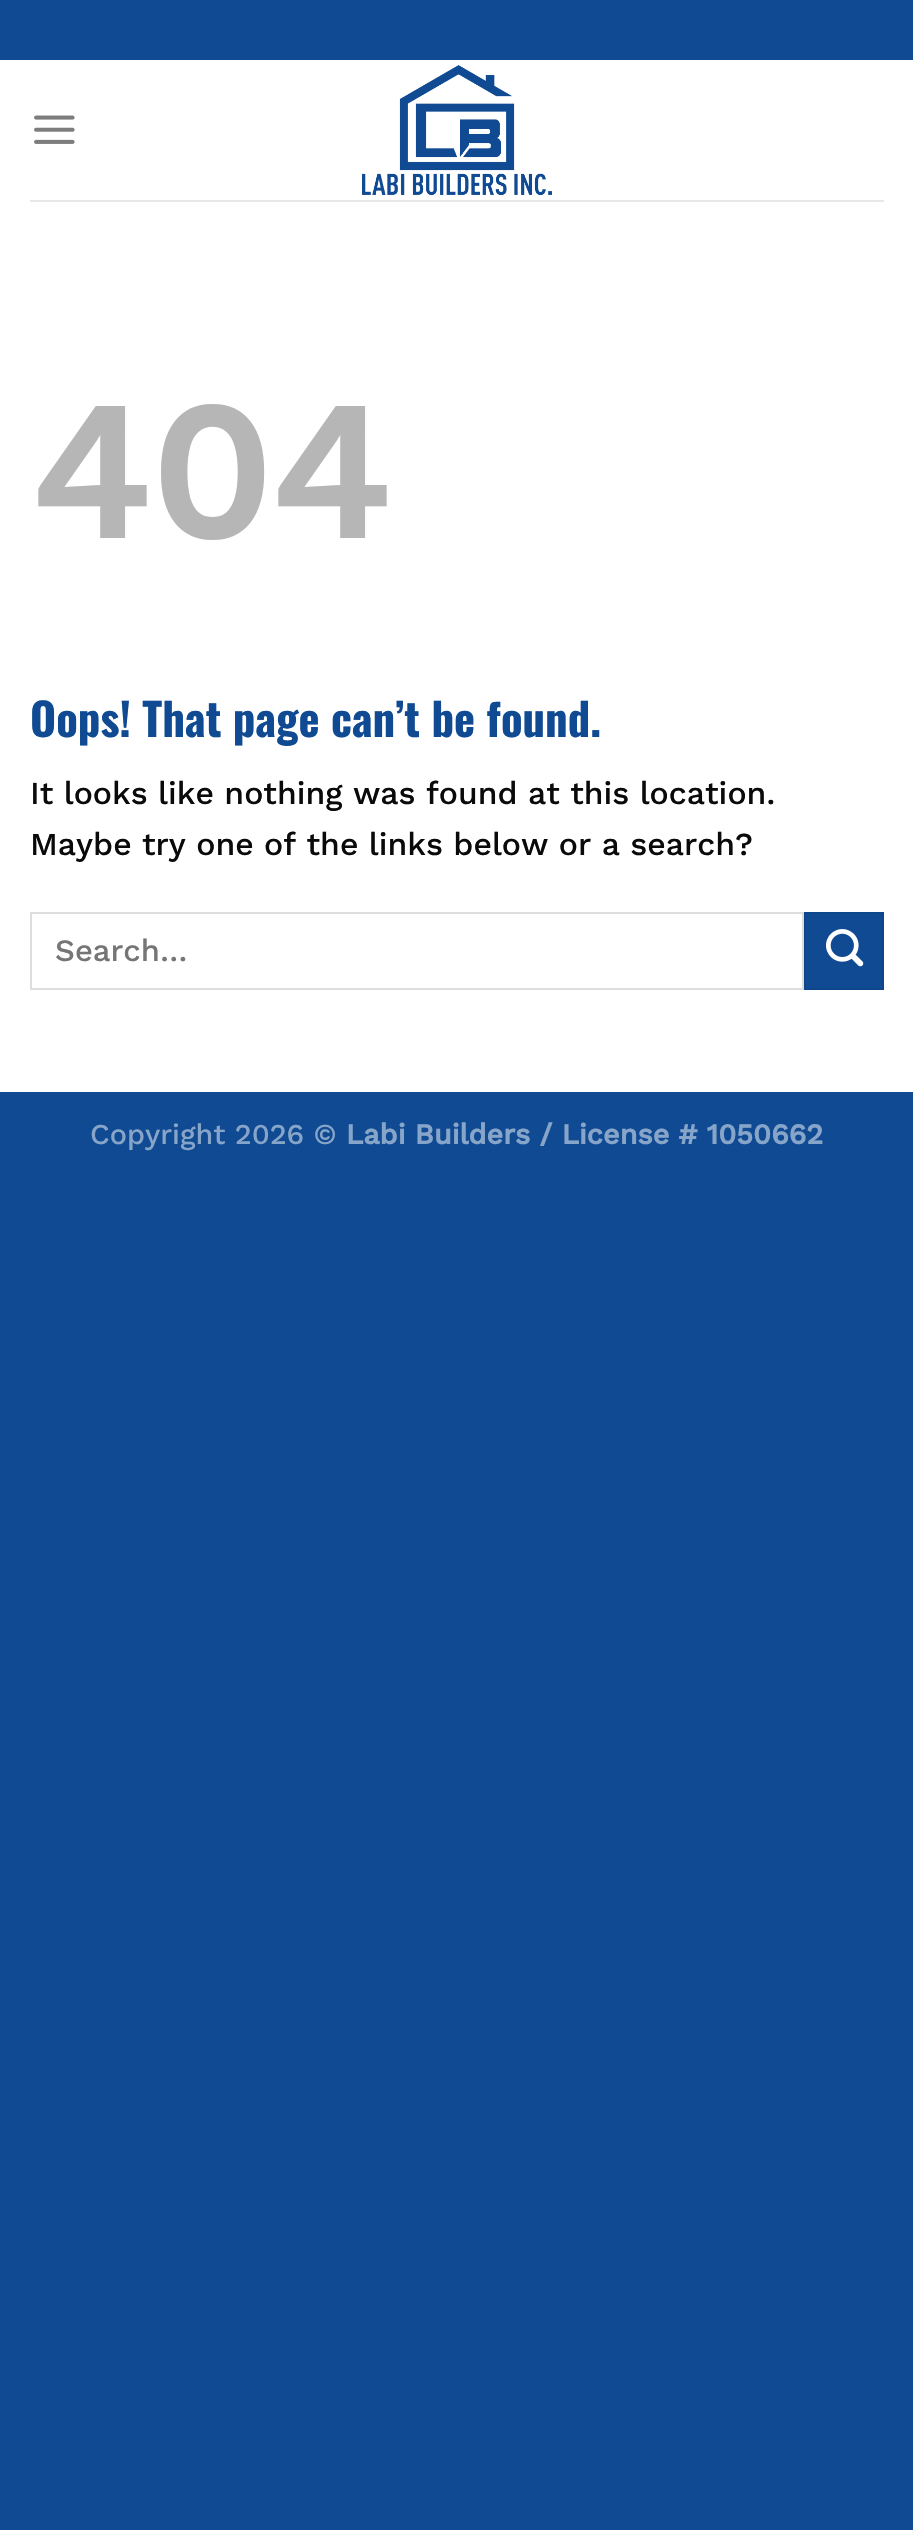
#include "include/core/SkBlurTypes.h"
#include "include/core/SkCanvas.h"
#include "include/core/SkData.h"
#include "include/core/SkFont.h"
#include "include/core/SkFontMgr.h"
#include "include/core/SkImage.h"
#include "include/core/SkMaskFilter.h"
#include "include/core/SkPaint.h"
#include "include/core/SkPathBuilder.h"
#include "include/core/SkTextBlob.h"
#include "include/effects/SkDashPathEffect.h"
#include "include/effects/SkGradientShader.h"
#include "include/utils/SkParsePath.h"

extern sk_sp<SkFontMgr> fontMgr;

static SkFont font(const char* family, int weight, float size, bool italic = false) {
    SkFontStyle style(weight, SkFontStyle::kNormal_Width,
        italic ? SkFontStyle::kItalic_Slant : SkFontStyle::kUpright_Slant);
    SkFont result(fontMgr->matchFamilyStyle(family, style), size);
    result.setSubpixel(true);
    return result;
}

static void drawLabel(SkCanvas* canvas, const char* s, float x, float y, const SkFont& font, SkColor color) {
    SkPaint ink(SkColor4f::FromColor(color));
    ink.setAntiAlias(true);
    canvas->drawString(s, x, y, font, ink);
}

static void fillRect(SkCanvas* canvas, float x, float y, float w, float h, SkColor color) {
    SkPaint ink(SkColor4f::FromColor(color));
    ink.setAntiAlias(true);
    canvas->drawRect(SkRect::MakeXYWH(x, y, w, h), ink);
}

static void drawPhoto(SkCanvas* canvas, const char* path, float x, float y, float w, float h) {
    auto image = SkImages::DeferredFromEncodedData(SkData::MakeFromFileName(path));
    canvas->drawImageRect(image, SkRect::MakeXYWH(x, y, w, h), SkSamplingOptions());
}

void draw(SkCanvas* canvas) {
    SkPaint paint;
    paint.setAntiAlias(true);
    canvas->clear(0xFF0F4A92);
    fillRect(canvas, 0, 60, 913, 1032, 0xFFFFFFFF);
    drawPhoto(canvas, "assets/img1.png", 34, 115, 41, 29);
    drawPhoto(canvas, "assets/img2.png", 362, 65, 190, 131);
    fillRect(canvas, 30, 200, 854, 2, 0xFFE7E7E7);
    SkFont font1 = font("Work Sans", 700, 192);
    drawLabel(canvas, "404", 30, 538, font1, 0xFFB6B6B6);
    SkFont font2 = font("Oswald", 700, 44.75f);
    drawLabel(canvas, "Oops! That page can’t be found.", 30, 737, font2, 0xFF0F4A92);
    SkFont font3 = font("Work Sans", 500, 32);
    drawLabel(canvas, "It looks like nothing was found at this location.", 30, 804, font3, 0xFF0A0A0A);
    drawLabel(canvas, "Maybe try one of the links below or a search?", 30, 855, font3, 0xFF0A0A0A);
    paint.setStroke(true);
    paint.setStrokeWidth(2);
    paint.setColor(0xFFDDDDDD);
    canvas->drawRect(SkRect::MakeXYWH(31, 913, 772, 76), paint);
    SkFont font4 = font("Work Sans", 500, 31);
    drawLabel(canvas, "Search…", 55, 961, font4, 0xFF757575);
    paint.setStroke(false);
    paint.setColor(0xFF0F4A92);
    canvas->drawRect(SkRect::MakeXYWH(805, 913, 78, 76), paint);
    paint.setStroke(true);
    paint.setColor(0xFF0E468B);
    canvas->drawRect(SkRect::MakeXYWH(805, 913, 78, 76), paint);
    drawPhoto(canvas, "assets/img3.png", 826, 929, 38, 38);
    SkFont font5 = font("Work Sans", 500, 28.75f);
    drawLabel(canvas, "Copyright 2026 ©", 90, 1144, font5, 0xFF87A5C9);
    SkFont font6 = font("Work Sans", 700, 28.75f);
    drawLabel(canvas, "Labi Builders / License # 1050662", 346, 1144, font6, 0xFF87A5C9);
}
